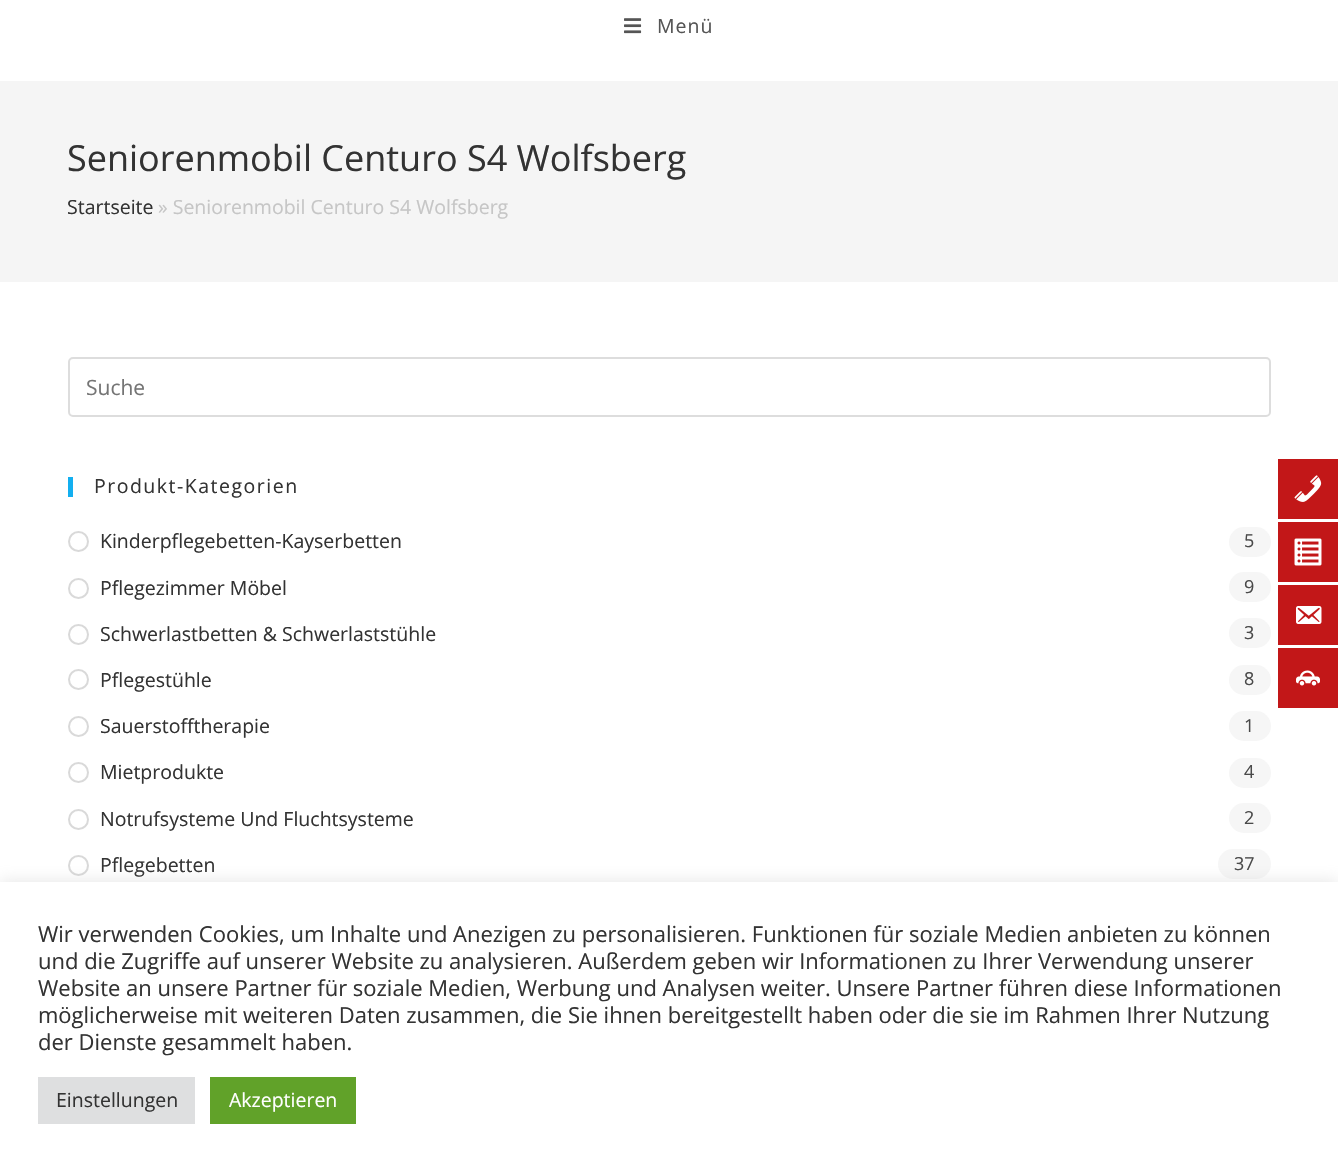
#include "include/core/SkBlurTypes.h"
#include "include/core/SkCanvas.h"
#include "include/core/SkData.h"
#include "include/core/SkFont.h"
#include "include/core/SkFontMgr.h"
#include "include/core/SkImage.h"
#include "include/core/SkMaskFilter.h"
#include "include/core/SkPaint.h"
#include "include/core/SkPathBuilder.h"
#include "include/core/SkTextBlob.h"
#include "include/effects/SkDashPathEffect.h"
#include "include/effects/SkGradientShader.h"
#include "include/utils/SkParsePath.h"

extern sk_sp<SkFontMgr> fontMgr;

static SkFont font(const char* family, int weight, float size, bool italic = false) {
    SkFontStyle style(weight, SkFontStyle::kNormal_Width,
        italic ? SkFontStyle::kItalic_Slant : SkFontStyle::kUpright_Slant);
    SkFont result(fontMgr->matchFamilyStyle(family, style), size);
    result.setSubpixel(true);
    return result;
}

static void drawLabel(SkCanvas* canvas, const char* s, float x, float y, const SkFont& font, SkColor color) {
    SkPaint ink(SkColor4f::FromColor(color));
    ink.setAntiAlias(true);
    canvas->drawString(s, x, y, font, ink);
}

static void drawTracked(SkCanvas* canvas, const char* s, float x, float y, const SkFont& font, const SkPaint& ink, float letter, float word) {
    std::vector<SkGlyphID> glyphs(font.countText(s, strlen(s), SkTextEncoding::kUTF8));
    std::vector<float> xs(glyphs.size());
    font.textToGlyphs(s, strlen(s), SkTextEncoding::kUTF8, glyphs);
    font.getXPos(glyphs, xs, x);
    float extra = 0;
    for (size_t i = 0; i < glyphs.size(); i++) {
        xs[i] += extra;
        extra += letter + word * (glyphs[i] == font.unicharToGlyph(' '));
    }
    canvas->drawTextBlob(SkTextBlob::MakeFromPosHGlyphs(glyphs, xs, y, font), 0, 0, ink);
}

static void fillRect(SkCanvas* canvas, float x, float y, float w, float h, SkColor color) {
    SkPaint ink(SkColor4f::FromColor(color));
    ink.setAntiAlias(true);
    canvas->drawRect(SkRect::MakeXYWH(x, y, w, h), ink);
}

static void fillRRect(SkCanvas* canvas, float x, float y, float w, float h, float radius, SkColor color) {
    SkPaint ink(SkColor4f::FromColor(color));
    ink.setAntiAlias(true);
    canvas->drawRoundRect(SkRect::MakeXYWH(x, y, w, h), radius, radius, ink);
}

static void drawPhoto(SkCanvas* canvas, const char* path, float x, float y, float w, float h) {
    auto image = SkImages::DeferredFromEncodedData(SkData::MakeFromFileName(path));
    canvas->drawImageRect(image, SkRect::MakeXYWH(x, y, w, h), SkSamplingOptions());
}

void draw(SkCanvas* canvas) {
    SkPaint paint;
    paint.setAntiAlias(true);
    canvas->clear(0xFFFFFFFF);
    drawPhoto(canvas, "assets/img1.png", 624, 18, 18, 16);
    SkFont font1 = font("Open Sans", 400, 19.5f);
    paint.setColor(0xFF555555);
    drawTracked(canvas, "Menü", 657, 33, font1, paint, 1, 0);
    fillRect(canvas, 0, 81, 1338, 201, 0xFFF5F5F5);
    SkFont font2 = font("Open Sans", 400, 36);
    drawLabel(canvas, "Seniorenmobil Centuro S4 Wolfsberg", 67, 171, font2, 0xFF333333);
    drawLabel(canvas, "Startseite", 67, 214, font1, 0xFF333333);
    drawLabel(canvas, "» Seniorenmobil Centuro S4 Wolfsberg", 158, 214, font1, 0xFFC6C6C6);
    paint.setStroke(true);
    paint.setStrokeWidth(2);
    paint.setColor(0xFFDDDDDD);
    canvas->drawRoundRect(SkRect::MakeXYWH(69, 358, 1201, 58), 4, 4, paint);
    SkFont font3 = font("Open Sans", 400, 21);
    drawLabel(canvas, "Suche", 86, 395, font3, 0xFF757575);
    fillRect(canvas, 68, 477, 5, 20, 0xFF13AFF0);
    paint.setStroke(false);
    paint.setColor(0xFF333333);
    drawTracked(canvas, "Produkt-Kategorien", 94, 493, font1, paint, 1.5f, 0);
    paint.setStroke(true);
    paint.setColor(0xFFD9D9D9);
    canvas->drawCircle(78.5f, 541.5f, 9.5f, paint);
    drawLabel(canvas, "Kinderpflegebetten-Kayserbetten", 100, 548, font1, 0xFF333333);
    fillRRect(canvas, 1229, 527, 42, 30, 15, 0xFFF6F6F6);
    SkFont font4 = font("Open Sans", 400, 18);
    drawLabel(canvas, "5", 1244, 547, font4, 0xFF4A4A4A);
    canvas->drawCircle(78.5f, 588.5f, 9.5f, paint);
    drawLabel(canvas, "Pflegezimmer Möbel", 100, 595, font1, 0xFF333333);
    fillRRect(canvas, 1229, 572, 42, 30, 15, 0xFFF6F6F6);
    drawLabel(canvas, "9", 1244, 593, font4, 0xFF4A4A4A);
    canvas->drawCircle(78.5f, 634.5f, 9.5f, paint);
    drawLabel(canvas, "Schwerlastbetten & Schwerlaststühle", 100, 641, font1, 0xFF333333);
    fillRRect(canvas, 1229, 618, 42, 30, 15, 0xFFF6F6F6);
    drawLabel(canvas, "3", 1244, 639, font4, 0xFF4A4A4A);
    canvas->drawCircle(78.5f, 679.5f, 9.5f, paint);
    drawLabel(canvas, "Pflegestühle", 100, 687, font1, 0xFF333333);
    fillRRect(canvas, 1229, 665, 42, 30, 15, 0xFFF6F6F6);
    drawLabel(canvas, "8", 1244, 685, font4, 0xFF4A4A4A);
    canvas->drawCircle(78.5f, 726.5f, 9.5f, paint);
    drawLabel(canvas, "Sauerstofftherapie", 100, 733, font1, 0xFF333333);
    fillRRect(canvas, 1229, 711, 42, 30, 15, 0xFFF6F6F6);
    drawLabel(canvas, "1", 1244, 732, font4, 0xFF4A4A4A);
    canvas->drawCircle(78.5f, 772.5f, 9.5f, paint);
    drawLabel(canvas, "Mietprodukte", 100, 779, font1, 0xFF333333);
    fillRRect(canvas, 1229, 758, 42, 30, 15, 0xFFF6F6F6);
    drawLabel(canvas, "4", 1244, 778, font4, 0xFF4A4A4A);
    canvas->drawCircle(78.5f, 819.5f, 9.5f, paint);
    drawLabel(canvas, "Notrufsysteme Und Fluchtsysteme", 100, 826, font1, 0xFF333333);
    fillRRect(canvas, 1229, 803, 42, 30, 15, 0xFFF6F6F6);
    drawLabel(canvas, "2", 1244, 824, font4, 0xFF4A4A4A);
    canvas->drawCircle(78.5f, 865.5f, 9.5f, paint);
    drawLabel(canvas, "Pflegebetten", 100, 872, font1, 0xFF333333);
    fillRRect(canvas, 1218, 849, 53, 30, 15, 0xFFF6F6F6);
    drawLabel(canvas, "37", 1234, 870, font4, 0xFF4A4A4A);
    fillRect(canvas, 1278, 459, 60, 60, 0xFFC21718);
    drawPhoto(canvas, "assets/img2.png", 1294, 475, 28, 27);
    fillRect(canvas, 1278, 522, 60, 60, 0xFFC21718);
    drawPhoto(canvas, "assets/img3.png", 1294, 538, 28, 28);
    fillRect(canvas, 1278, 585, 60, 60, 0xFFC21718);
    drawPhoto(canvas, "assets/img4.png", 1296, 606, 26, 18);
    fillRect(canvas, 1278, 648, 60, 60, 0xFFC21718);
    drawPhoto(canvas, "assets/img5.png", 1296, 670, 24, 16);
    paint.setStroke(false);
    paint.setColor(0x4DACABAB);
    paint.setMaskFilter(SkMaskFilter::MakeBlur(kNormal_SkBlurStyle, 7.5f));
    canvas->drawRect(SkRect::MakeXYWH(0, 881, 1338, 286), paint);
    paint.setMaskFilter(nullptr);
    fillRect(canvas, 0, 882, 1338, 286, 0xFFFFFFFF);
    SkFont font5 = font("Open Sans", 400, 22);
    drawLabel(canvas, "Wir verwenden Cookies, um Inhalte und Anezigen zu personalisieren. Funktionen für soziale Medien anbieten zu können", 38, 942, font5, 0xFF333333);
    drawLabel(canvas, "und die Zugriffe auf unserer Website zu analysieren. Außerdem geben wir Informationen zu Ihrer Verwendung unserer", 38, 969, font5, 0xFF333333);
    drawLabel(canvas, "Website an unsere Partner für soziale Medien, Werbung und Analysen weiter. Unsere Partner führen diese Informationen", 38, 996, font5, 0xFF333333);
    drawLabel(canvas, "möglicherweise mit weiteren Daten zusammen, die Sie ihnen bereitgestellt haben oder die sie im Rahmen Ihrer Nutzung", 38, 1023, font5, 0xFF333333);
    drawLabel(canvas, "der Dienste gesammelt haben.", 38, 1050, font5, 0xFF333333);
    fillRect(canvas, 38, 1077, 157, 47, 0xFFDEDFE0);
    drawLabel(canvas, "Einstellungen", 56, 1107, font1, 0xFF333333);
    fillRect(canvas, 210, 1077, 146, 47, 0xFF61A229);
    drawLabel(canvas, "Akzeptieren", 229, 1107, font1, 0xFFFFFFFF);
}
